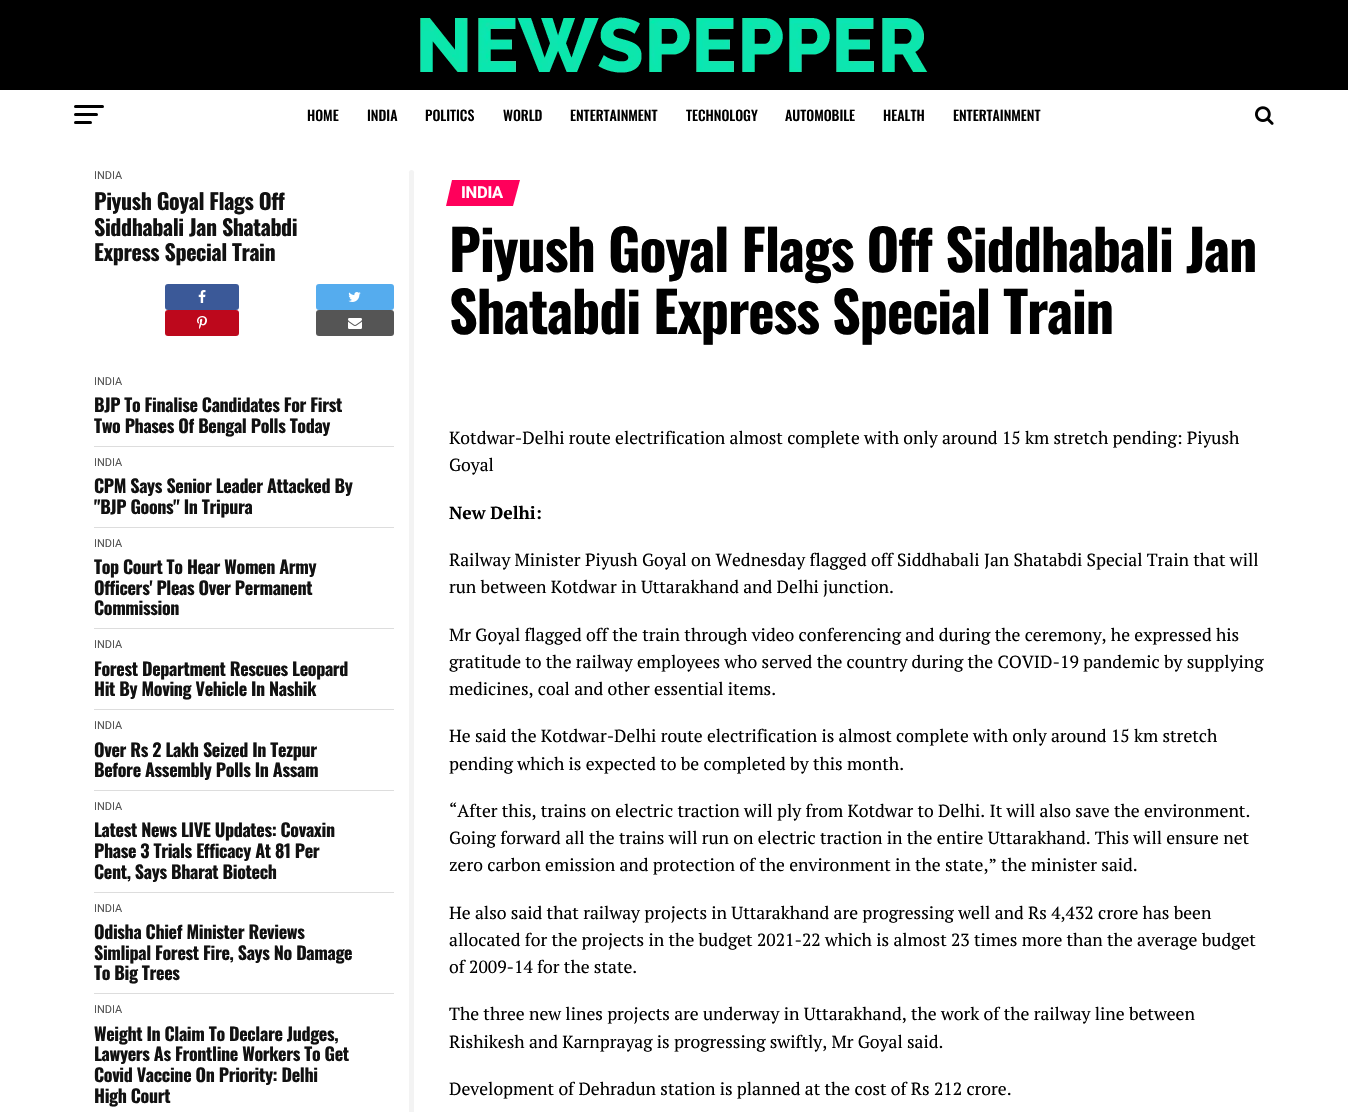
#include "include/core/SkBlurTypes.h"
#include "include/core/SkCanvas.h"
#include "include/core/SkData.h"
#include "include/core/SkFont.h"
#include "include/core/SkFontMgr.h"
#include "include/core/SkImage.h"
#include "include/core/SkMaskFilter.h"
#include "include/core/SkPaint.h"
#include "include/core/SkPathBuilder.h"
#include "include/core/SkTextBlob.h"
#include "include/effects/SkDashPathEffect.h"
#include "include/effects/SkGradientShader.h"
#include "include/utils/SkParsePath.h"

extern sk_sp<SkFontMgr> fontMgr;

static SkFont font(const char* family, int weight, float size, bool italic = false) {
    SkFontStyle style(weight, SkFontStyle::kNormal_Width,
        italic ? SkFontStyle::kItalic_Slant : SkFontStyle::kUpright_Slant);
    SkFont result(fontMgr->matchFamilyStyle(family, style), size);
    result.setSubpixel(true);
    return result;
}

static void drawLabel(SkCanvas* canvas, const char* s, float x, float y, const SkFont& font, SkColor color) {
    SkPaint ink(SkColor4f::FromColor(color));
    ink.setAntiAlias(true);
    canvas->drawString(s, x, y, font, ink);
}

static void drawTracked(SkCanvas* canvas, const char* s, float x, float y, const SkFont& font, const SkPaint& ink, float letter, float word) {
    std::vector<SkGlyphID> glyphs(font.countText(s, strlen(s), SkTextEncoding::kUTF8));
    std::vector<float> xs(glyphs.size());
    font.textToGlyphs(s, strlen(s), SkTextEncoding::kUTF8, glyphs);
    font.getXPos(glyphs, xs, x);
    float extra = 0;
    for (size_t i = 0; i < glyphs.size(); i++) {
        xs[i] += extra;
        extra += letter + word * (glyphs[i] == font.unicharToGlyph(' '));
    }
    canvas->drawTextBlob(SkTextBlob::MakeFromPosHGlyphs(glyphs, xs, y, font), 0, 0, ink);
}

static void fillRect(SkCanvas* canvas, float x, float y, float w, float h, SkColor color) {
    SkPaint ink(SkColor4f::FromColor(color));
    ink.setAntiAlias(true);
    canvas->drawRect(SkRect::MakeXYWH(x, y, w, h), ink);
}

static void fillRRect(SkCanvas* canvas, float x, float y, float w, float h, float radius, SkColor color) {
    SkPaint ink(SkColor4f::FromColor(color));
    ink.setAntiAlias(true);
    canvas->drawRoundRect(SkRect::MakeXYWH(x, y, w, h), radius, radius, ink);
}

static void drawPhoto(SkCanvas* canvas, const char* path, float x, float y, float w, float h) {
    auto image = SkImages::DeferredFromEncodedData(SkData::MakeFromFileName(path));
    canvas->drawImageRect(image, SkRect::MakeXYWH(x, y, w, h), SkSamplingOptions());
}

static SkPath parsePath(const char* data, bool evenOdd = false) {
    SkPath result = *SkParsePath::FromSVGString(data);
    if (evenOdd) result.setFillType(SkPathFillType::kEvenOdd);
    return result;
}

void draw(SkCanvas* canvas) {
    SkPaint paint;
    paint.setAntiAlias(true);
    canvas->clear(0xFFFFFFFF);
    fillRect(canvas, 0, 0, 1348, 90, 0xFF000000);
    drawPhoto(canvas, "assets/img1.png", 420, 17, 508, 56);
    fillRRect(canvas, 74, 105, 30, 3, 1.5f, 0xFF000000);
    fillRRect(canvas, 74, 113, 24, 3, 1.5f, 0xFF000000);
    fillRRect(canvas, 74, 121, 18, 3, 1.5f, 0xFF000000);
    SkFont font1 = font("Oswald", 500, 14);
    drawLabel(canvas, "HOME", 307, 121, font1, 0xFF000000);
    drawLabel(canvas, "INDIA", 367, 121, font1, 0xFF000000);
    drawLabel(canvas, "POLITICS", 425, 121, font1, 0xFF000000);
    drawLabel(canvas, "WORLD", 503, 121, font1, 0xFF000000);
    drawLabel(canvas, "ENTERTAINMENT", 570, 121, font1, 0xFF000000);
    drawLabel(canvas, "TECHNOLOGY", 686, 121, font1, 0xFF000000);
    drawLabel(canvas, "AUTOMOBILE", 785, 121, font1, 0xFF000000);
    drawLabel(canvas, "HEALTH", 883, 121, font1, 0xFF000000);
    drawLabel(canvas, "ENTERTAINMENT", 953, 121, font1, 0xFF000000);
    drawPhoto(canvas, "assets/img2.png", 1255, 106, 19, 19);
    SkFont font2 = font("Roboto", 400, 11);
    drawLabel(canvas, "INDIA", 94, 179, font2, 0xFF555555);
    SkFont font3 = font("Oswald", 700, 22);
    paint.setColor(0xFF111111);
    drawTracked(canvas, "Piyush Goyal Flags Off", 94, 210, font3, paint, -0.4f, 0);
    drawTracked(canvas, "Siddhabali Jan Shatabdi", 94, 236, font3, paint, -0.4f, 0);
    drawTracked(canvas, "Express Special Train", 94, 261, font3, paint, -0.4f, 0);
    fillRRect(canvas, 165, 284, 74, 26, 3, 0xFF3B5998);
    drawPhoto(canvas, "assets/img3.png", 198, 290, 8, 13);
    fillRRect(canvas, 316, 284, 78, 26, 3, 0xFF55ACEE);
    drawPhoto(canvas, "assets/img4.png", 348, 292, 13, 10);
    fillRRect(canvas, 165, 310, 74, 26, 3, 0xFFBD081C);
    drawPhoto(canvas, "assets/img5.png", 197, 316, 10, 13);
    fillRRect(canvas, 316, 310, 78, 26, 3, 0xFF555555);
    drawPhoto(canvas, "assets/img6.png", 348, 318, 14, 11);
    fillRect(canvas, 94, 446, 300, 1, 0xFFDDDDDD);
    drawLabel(canvas, "INDIA", 94, 385, font2, 0xFF555555);
    SkFont font4 = font("Oswald", 700, 18);
    drawTracked(canvas, "BJP To Finalise Candidates For First", 94, 412, font4, paint, -0.35f, 0);
    drawTracked(canvas, "Two Phases Of Bengal Polls Today", 94, 433, font4, paint, -0.35f, 0);
    fillRect(canvas, 94, 527, 300, 1, 0xFFDDDDDD);
    drawLabel(canvas, "INDIA", 94, 466, font2, 0xFF555555);
    drawTracked(canvas, "CPM Says Senior Leader Attacked By", 94, 493, font4, paint, -0.35f, 0);
    drawTracked(canvas, "\"BJP Goons\" In Tripura", 94, 514, font4, paint, -0.35f, 0);
    fillRect(canvas, 94, 628, 300, 1, 0xFFDDDDDD);
    drawLabel(canvas, "INDIA", 94, 547, font2, 0xFF555555);
    drawTracked(canvas, "Top Court To Hear Women Army", 94, 574, font4, paint, -0.35f, 0);
    drawTracked(canvas, "Officers' Pleas Over Permanent", 94, 595, font4, paint, -0.35f, 0);
    drawTracked(canvas, "Commission", 94, 615, font4, paint, -0.35f, 0);
    fillRect(canvas, 94, 709, 300, 1, 0xFFDDDDDD);
    drawLabel(canvas, "INDIA", 94, 648, font2, 0xFF555555);
    drawTracked(canvas, "Forest Department Rescues Leopard", 94, 676, font4, paint, -0.35f, 0);
    drawTracked(canvas, "Hit By Moving Vehicle In Nashik", 94, 696, font4, paint, -0.35f, 0);
    fillRect(canvas, 94, 790, 300, 1, 0xFFDDDDDD);
    drawLabel(canvas, "INDIA", 94, 729, font2, 0xFF555555);
    drawTracked(canvas, "Over Rs 2 Lakh Seized In Tezpur", 94, 757, font4, paint, -0.35f, 0);
    drawTracked(canvas, "Before Assembly Polls In Assam", 94, 777, font4, paint, -0.35f, 0);
    fillRect(canvas, 94, 892, 300, 1, 0xFFDDDDDD);
    drawLabel(canvas, "INDIA", 94, 810, font2, 0xFF555555);
    drawTracked(canvas, "Latest News LIVE Updates: Covaxin", 94, 837, font4, paint, -0.35f, 0);
    drawTracked(canvas, "Phase 3 Trials Efficacy At 81 Per", 94, 858, font4, paint, -0.35f, 0);
    drawTracked(canvas, "Cent, Says Bharat Biotech", 94, 879, font4, paint, -0.35f, 0);
    fillRect(canvas, 94, 993, 300, 1, 0xFFDDDDDD);
    drawLabel(canvas, "INDIA", 94, 912, font2, 0xFF555555);
    drawTracked(canvas, "Odisha Chief Minister Reviews", 94, 939, font4, paint, -0.35f, 0);
    drawTracked(canvas, "Simlipal Forest Fire, Says No Damage", 94, 960, font4, paint, -0.35f, 0);
    drawTracked(canvas, "To Big Trees", 94, 980, font4, paint, -0.35f, 0);
    drawLabel(canvas, "INDIA", 94, 1013, font2, 0xFF555555);
    drawTracked(canvas, "Weight In Claim To Declare Judges,", 94, 1041, font4, paint, -0.35f, 0);
    drawTracked(canvas, "Lawyers As Frontline Workers To Get", 94, 1061, font4, paint, -0.35f, 0);
    drawTracked(canvas, "Covid Vaccine On Priority: Delhi", 94, 1082, font4, paint, -0.35f, 0);
    drawTracked(canvas, "High Court", 94, 1103, font4, paint, -0.35f, 0);
    paint.setColor(0xFFFF005B);
    canvas->drawPath(parsePath("M452 180H520L513 206H446Z"), paint);
    SkFont font5 = font("Roboto", 700, 16.5f);
    paint.setColor(0xFFFFFFFF);
    drawTracked(canvas, "INDIA", 461, 198, font5, paint, -0.25f, 0);
    SkFont font6 = font("Oswald", 700, 56);
    paint.setColor(0xFF000000);
    drawTracked(canvas, "Piyush Goyal Flags Off Siddhabali Jan", 449, 272, font6, paint, -1.1f, 0);
    drawTracked(canvas, "Shatabdi Express Special Train", 449, 334, font6, paint, -1.1f, 0);
    SkFont font7 = font("PT Serif", 400, 17.6f);
    drawLabel(canvas, "Kotdwar-Delhi route electrification almost complete with only around 15 km stretch pending: Piyush", 449, 444, font7, 0xFF000000);
    drawLabel(canvas, "Goyal", 449, 471, font7, 0xFF000000);
    SkFont font8 = font("PT Serif", 700, 17.6f);
    drawLabel(canvas, "New Delhi:", 449, 519, font8, 0xFF000000);
    drawLabel(canvas, "Railway Minister Piyush Goyal on Wednesday flagged off Siddhabali Jan Shatabdi Special Train that will", 449, 566, font7, 0xFF000000);
    drawLabel(canvas, "run between Kotdwar in Uttarakhand and Delhi junction.", 449, 593, font7, 0xFF000000);
    drawLabel(canvas, "Mr Goyal flagged off the train through video conferencing and during the ceremony, he expressed his", 449, 641, font7, 0xFF000000);
    drawLabel(canvas, "gratitude to the railway employees who served the country during the COVID-19 pandemic by supplying", 449, 668, font7, 0xFF000000);
    drawLabel(canvas, "medicines, coal and other essential items.", 449, 695, font7, 0xFF000000);
    drawLabel(canvas, "He said the Kotdwar-Delhi route electrification is almost complete with only around 15 km stretch", 449, 742, font7, 0xFF000000);
    drawLabel(canvas, "pending which is expected to be completed by this month.", 449, 770, font7, 0xFF000000);
    drawLabel(canvas, "“After this, trains on electric traction will ply from Kotdwar to Delhi. It will also save the environment.", 449, 817, font7, 0xFF000000);
    drawLabel(canvas, "Going forward all the trains will run on electric traction in the entire Uttarakhand. This will ensure net", 449, 844, font7, 0xFF000000);
    drawLabel(canvas, "zero carbon emission and protection of the environment in the state,” the minister said.", 449, 871, font7, 0xFF000000);
    drawLabel(canvas, "He also said that railway projects in Uttarakhand are progressing well and Rs 4,432 crore has been", 449, 919, font7, 0xFF000000);
    drawLabel(canvas, "allocated for the projects in the budget 2021-22 which is almost 23 times more than the average budget", 449, 946, font7, 0xFF000000);
    drawLabel(canvas, "of 2009-14 for the state.", 449, 973, font7, 0xFF000000);
    drawLabel(canvas, "The three new lines projects are underway in Uttarakhand, the work of the railway line between", 449, 1020, font7, 0xFF000000);
    drawLabel(canvas, "Rishikesh and Karnprayag is progressing swiftly, Mr Goyal said.", 449, 1048, font7, 0xFF000000);
    drawLabel(canvas, "Development of Dehradun station is planned at the cost of Rs 212 crore.", 449, 1095, font7, 0xFF000000);
    fillRRect(canvas, 409, 170, 5, 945, 2.5f, 0xFFF3F3F3);
}
